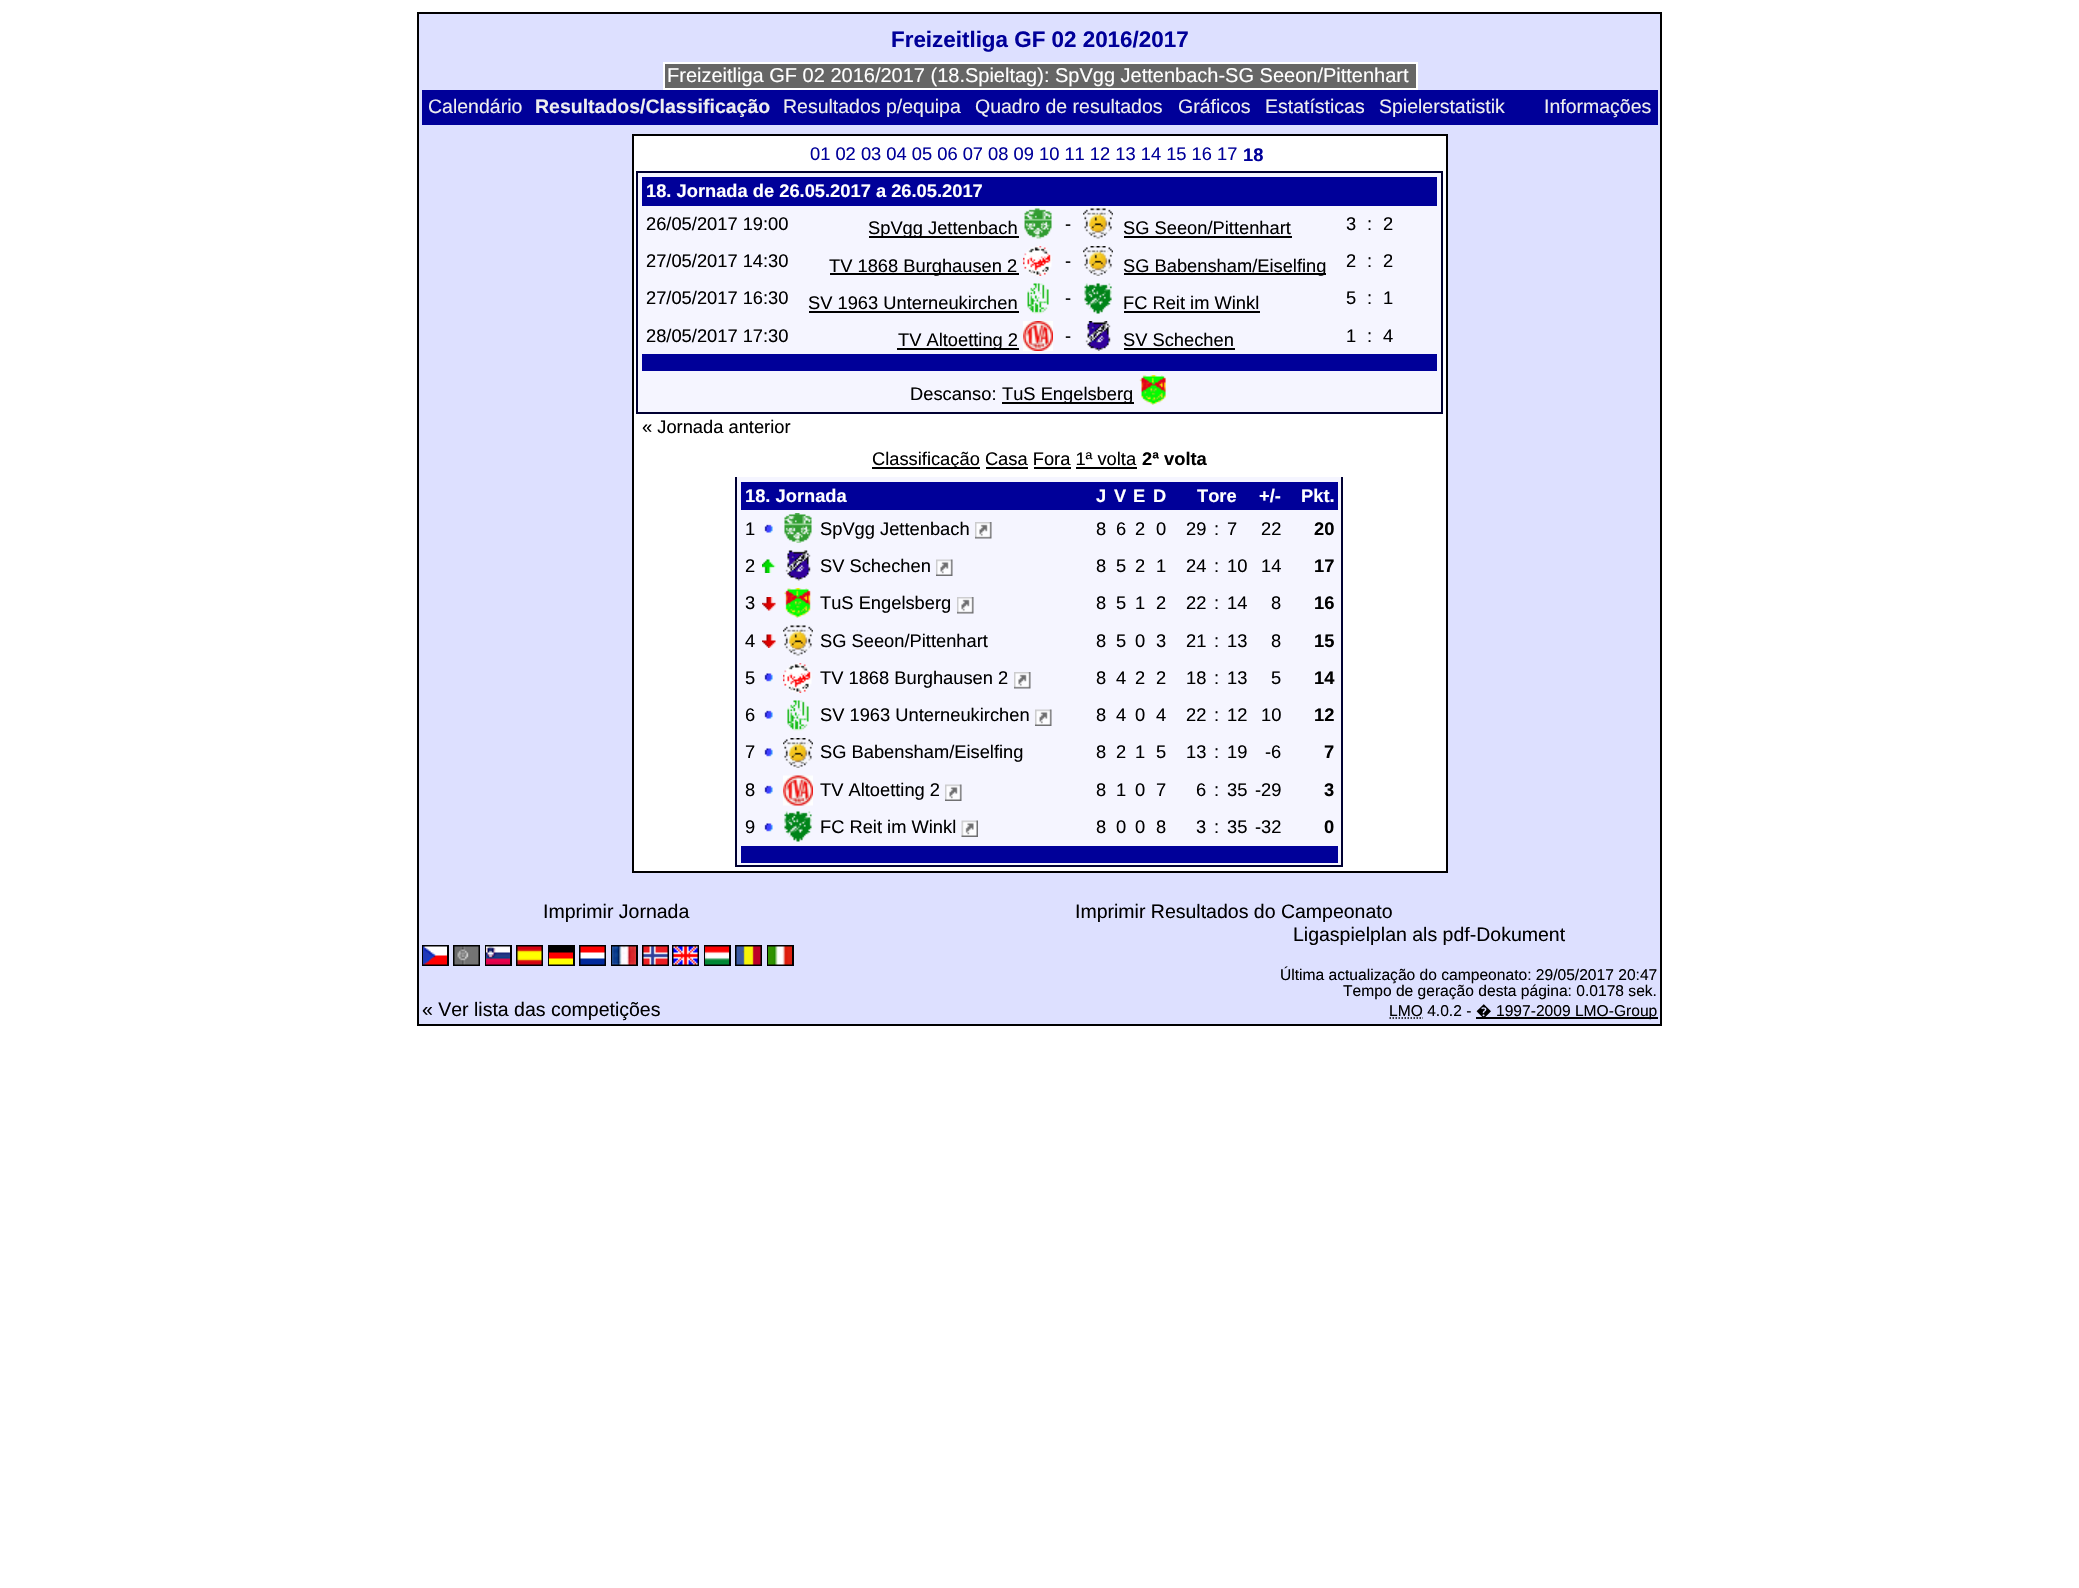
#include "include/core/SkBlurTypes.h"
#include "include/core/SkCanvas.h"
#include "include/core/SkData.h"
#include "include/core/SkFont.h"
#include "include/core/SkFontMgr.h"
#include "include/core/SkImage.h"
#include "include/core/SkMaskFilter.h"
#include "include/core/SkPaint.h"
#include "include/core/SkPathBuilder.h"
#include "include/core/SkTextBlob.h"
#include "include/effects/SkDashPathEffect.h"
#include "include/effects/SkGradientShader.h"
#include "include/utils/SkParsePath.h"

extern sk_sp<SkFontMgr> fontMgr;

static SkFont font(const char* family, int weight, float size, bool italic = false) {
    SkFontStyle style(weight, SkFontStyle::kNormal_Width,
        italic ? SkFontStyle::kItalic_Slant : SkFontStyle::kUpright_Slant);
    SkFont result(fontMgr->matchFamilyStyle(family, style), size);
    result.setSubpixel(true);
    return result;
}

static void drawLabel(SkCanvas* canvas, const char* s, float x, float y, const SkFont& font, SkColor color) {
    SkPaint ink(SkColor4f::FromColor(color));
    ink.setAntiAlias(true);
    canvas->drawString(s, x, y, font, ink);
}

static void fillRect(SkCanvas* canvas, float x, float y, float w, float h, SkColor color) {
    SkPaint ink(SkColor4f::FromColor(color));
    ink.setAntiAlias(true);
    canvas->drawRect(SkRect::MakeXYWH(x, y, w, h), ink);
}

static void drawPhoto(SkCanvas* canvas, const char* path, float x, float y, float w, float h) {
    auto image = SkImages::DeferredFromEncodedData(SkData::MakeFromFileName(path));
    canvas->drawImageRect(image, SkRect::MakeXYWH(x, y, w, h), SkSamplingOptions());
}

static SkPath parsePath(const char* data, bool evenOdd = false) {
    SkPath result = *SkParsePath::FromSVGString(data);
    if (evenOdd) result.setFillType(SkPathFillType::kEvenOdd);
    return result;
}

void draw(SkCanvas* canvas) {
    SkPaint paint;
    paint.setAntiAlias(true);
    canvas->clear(0xFFFFFFFF);
    paint.setColor(0xFFDDE0FF);
    canvas->drawRect(SkRect::MakeXYWH(418, 13, 1243, 1012), paint);
    paint.setStroke(true);
    paint.setStrokeWidth(2);
    paint.setColor(0xFF000000);
    canvas->drawRect(SkRect::MakeXYWH(418, 13, 1243, 1012), paint);
    SkFont font1 = font("Liberation Sans", 700, 22.4f);
    drawLabel(canvas, "Freizeitliga GF 02 2016/2017", 891, 47, font1, 0xFF000099);
    paint.setStroke(false);
    paint.setColor(0xFF666666);
    canvas->drawRect(SkRect::MakeXYWH(664, 63, 753, 26), paint);
    paint.setStroke(true);
    paint.setColor(0xFFFFFFFF);
    canvas->drawRect(SkRect::MakeXYWH(664, 63, 753, 26), paint);
    SkFont font2 = font("Liberation Sans", 400, 20);
    drawLabel(canvas, "Freizeitliga GF 02 2016/2017 (18.Spieltag): SpVgg Jettenbach-SG Seeon/Pittenhart", 667, 82, font2, 0xFFFFFFFF);
    fillRect(canvas, 422, 90, 1236, 35, 0xFF000099);
    SkFont font3 = font("Liberation Sans", 400, 19.5f);
    drawLabel(canvas, "Calendário", 428, 113, font3, 0xFFEEEEEE);
    SkFont font4 = font("Liberation Sans", 700, 19.5f);
    drawLabel(canvas, "Resultados/Classificação", 535, 113, font4, 0xFFEEEEEE);
    drawLabel(canvas, "Resultados p/equipa", 783, 113, font3, 0xFFEEEEEE);
    drawLabel(canvas, "Quadro de resultados", 975, 113, font3, 0xFFEEEEEE);
    drawLabel(canvas, "Gráficos", 1178, 113, font3, 0xFFEEEEEE);
    drawLabel(canvas, "Estatísticas", 1265, 113, font3, 0xFFEEEEEE);
    drawLabel(canvas, "Spielerstatistik", 1379, 113, font3, 0xFFEEEEEE);
    drawLabel(canvas, "Informações", 1544, 113, font3, 0xFFEEEEEE);
    paint.setStroke(false);
    canvas->drawRect(SkRect::MakeXYWH(633, 135, 814, 737), paint);
    paint.setStroke(true);
    paint.setColor(0xFF000000);
    canvas->drawRect(SkRect::MakeXYWH(633, 135, 814, 737), paint);
    SkFont font5 = font("Liberation Sans", 400, 18.3f);
    drawLabel(canvas, "01 02 03 04 05 06 07 08 09 10 11 12 13 14 15 16 17", 810, 160, font5, 0xFF000099);
    SkFont font6 = font("Liberation Sans", 700, 18.3f);
    drawLabel(canvas, "18", 1243, 161, font6, 0xFF000099);
    paint.setStroke(false);
    paint.setColor(0xFFF5F5FF);
    canvas->drawRect(SkRect::MakeXYWH(637, 172, 805, 241), paint);
    paint.setStroke(true);
    paint.setColor(0xFF000033);
    canvas->drawRect(SkRect::MakeXYWH(637, 172, 805, 241), paint);
    fillRect(canvas, 642, 177, 795, 29, 0xFF000099);
    drawLabel(canvas, "18. Jornada de 26.05.2017 a 26.05.2017", 646, 197, font6, 0xFFFFFFFF);
    drawLabel(canvas, "26/05/2017 19:00", 646, 230, font5, 0xFF000000);
    fillRect(canvas, 869, 236, 150, 2, 0xFF000000);
    drawLabel(canvas, "SpVgg Jettenbach", 868, 234, font5, 0xFF000000);
    drawPhoto(canvas, "assets/img1.png", 1024, 208, 28, 31);
    drawLabel(canvas, "-", 1065, 230, font5, 0xFF000000);
    drawPhoto(canvas, "assets/img2.png", 1083, 208, 30, 31);
    drawLabel(canvas, "SG Seeon/Pittenhart", 1123, 234, font5, 0xFF000000);
    fillRect(canvas, 1124, 236, 168, 2, 0xFF000000);
    drawLabel(canvas, "3", 1346, 230, font5, 0xFF000000);
    drawLabel(canvas, ":", 1367, 230, font5, 0xFF000000);
    drawLabel(canvas, "2", 1383, 230, font5, 0xFF000000);
    drawLabel(canvas, "27/05/2017 14:30", 646, 267, font5, 0xFF000000);
    fillRect(canvas, 830, 273, 189, 2, 0xFF000000);
    drawLabel(canvas, "TV 1868 Burghausen 2", 829, 272, font5, 0xFF000000);
    drawPhoto(canvas, "assets/img3.png", 1023, 246, 30, 30);
    drawLabel(canvas, "-", 1065, 267, font5, 0xFF000000);
    drawPhoto(canvas, "assets/img4.png", 1083, 246, 30, 30);
    fillRect(canvas, 1124, 273, 202, 2, 0xFF000000);
    drawLabel(canvas, "SG Babensham/Eiselfing", 1123, 272, font5, 0xFF000000);
    drawLabel(canvas, "2", 1346, 267, font5, 0xFF000000);
    drawLabel(canvas, ":", 1367, 267, font5, 0xFF000000);
    drawLabel(canvas, "2", 1383, 267, font5, 0xFF000000);
    drawLabel(canvas, "27/05/2017 16:30", 646, 304, font5, 0xFF000000);
    drawLabel(canvas, "SV 1963 Unterneukirchen", 808, 309, font5, 0xFF000000);
    fillRect(canvas, 809, 311, 210, 2, 0xFF000000);
    drawPhoto(canvas, "assets/img5.png", 1027, 283, 22, 31);
    drawLabel(canvas, "-", 1065, 304, font5, 0xFF000000);
    drawPhoto(canvas, "assets/img6.png", 1084, 283, 28, 31);
    drawLabel(canvas, "FC Reit im Winkl", 1123, 309, font5, 0xFF000000);
    fillRect(canvas, 1124, 311, 136, 2, 0xFF000000);
    drawLabel(canvas, "5", 1346, 304, font5, 0xFF000000);
    drawLabel(canvas, ":", 1367, 304, font5, 0xFF000000);
    drawLabel(canvas, "1", 1383, 304, font5, 0xFF000000);
    drawLabel(canvas, "28/05/2017 17:30", 646, 342, font5, 0xFF000000);
    fillRect(canvas, 897, 348, 122, 2, 0xFF000000);
    drawLabel(canvas, "TV Altoetting 2", 898, 346, font5, 0xFF000000);
    drawPhoto(canvas, "assets/img7.png", 1023, 321, 30, 30);
    drawLabel(canvas, "-", 1065, 342, font5, 0xFF000000);
    drawPhoto(canvas, "assets/img8.png", 1085, 321, 26, 30);
    drawLabel(canvas, "SV Schechen", 1123, 346, font5, 0xFF000000);
    fillRect(canvas, 1124, 348, 111, 2, 0xFF000000);
    drawLabel(canvas, "1", 1346, 342, font5, 0xFF000000);
    drawLabel(canvas, ":", 1367, 342, font5, 0xFF000000);
    drawLabel(canvas, "4", 1383, 342, font5, 0xFF000000);
    fillRect(canvas, 642, 354, 795, 17, 0xFF000099);
    drawLabel(canvas, "Descanso:", 910, 400, font5, 0xFF000000);
    fillRect(canvas, 1002, 402, 132, 2, 0xFF000000);
    drawLabel(canvas, "TuS Engelsberg", 1002, 400, font5, 0xFF000000);
    drawPhoto(canvas, "assets/img9.png", 1139, 375, 28, 30);
    drawLabel(canvas, "« Jornada anterior", 642, 433, font5, 0xFF000000);
    fillRect(canvas, 737, 477, 604, 388, 0xFFF5F5FF);
    canvas->drawRect(SkRect::MakeXYWH(736, 442, 606, 424), paint);
    fillRect(canvas, 735, 441, 608, 36, 0xFFFFFFFF);
    fillRect(canvas, 872, 467, 108, 2, 0xFF000000);
    drawLabel(canvas, "Classificação Casa Fora 1ª volta", 872, 465, font5, 0xFF000000);
    drawLabel(canvas, "2ª volta", 1142, 465, font6, 0xFF000000);
    fillRect(canvas, 986, 467, 42, 2, 0xFF000000);
    fillRect(canvas, 1034, 467, 37, 2, 0xFF000000);
    fillRect(canvas, 1076, 467, 61, 2, 0xFF000000);
    fillRect(canvas, 741, 482, 597, 28, 0xFF000099);
    drawLabel(canvas, "18. Jornada", 745, 502, font6, 0xFFFFFFFF);
    drawLabel(canvas, "J", 1096, 502, font6, 0xFFFFFFFF);
    drawLabel(canvas, "V", 1114, 502, font6, 0xFFFFFFFF);
    drawLabel(canvas, "E", 1133, 502, font6, 0xFFFFFFFF);
    drawLabel(canvas, "D", 1153, 502, font6, 0xFFFFFFFF);
    drawLabel(canvas, "Tore", 1197, 502, font6, 0xFFFFFFFF);
    drawLabel(canvas, "+/-", 1259, 502, font6, 0xFFFFFFFF);
    drawLabel(canvas, "Pkt.", 1301, 502, font6, 0xFFFFFFFF);
    drawLabel(canvas, "1", 745, 535, font5, 0xFF000000);
    drawPhoto(canvas, "assets/img10.png", 764, 524, 9, 9);
    drawPhoto(canvas, "assets/img11.png", 784, 513, 28, 30);
    drawLabel(canvas, "SpVgg Jettenbach", 820, 535, font5, 0xFF000000);
    drawPhoto(canvas, "assets/img12.png", 975, 522, 17, 17);
    drawLabel(canvas, "8", 1096, 535, font5, 0xFF000000);
    drawLabel(canvas, "6", 1116, 535, font5, 0xFF000000);
    drawLabel(canvas, "2", 1135, 535, font5, 0xFF000000);
    drawLabel(canvas, "0", 1156, 535, font5, 0xFF000000);
    drawLabel(canvas, "29", 1186, 535, font5, 0xFF000000);
    drawLabel(canvas, ":", 1214, 535, font5, 0xFF000000);
    drawLabel(canvas, "7", 1227, 535, font5, 0xFF000000);
    drawLabel(canvas, "22", 1261, 535, font5, 0xFF000000);
    drawLabel(canvas, "20", 1314, 535, font6, 0xFF000000);
    drawLabel(canvas, "2", 745, 572, font5, 0xFF000000);
    drawPhoto(canvas, "assets/img13.png", 762, 559, 14, 14);
    drawPhoto(canvas, "assets/img14.png", 785, 550, 26, 31);
    drawLabel(canvas, "SV Schechen", 820, 572, font5, 0xFF000000);
    drawPhoto(canvas, "assets/img15.png", 936, 559, 17, 17);
    drawLabel(canvas, "8", 1096, 572, font5, 0xFF000000);
    drawLabel(canvas, "5", 1116, 572, font5, 0xFF000000);
    drawLabel(canvas, "2", 1135, 572, font5, 0xFF000000);
    drawLabel(canvas, "1", 1156, 572, font5, 0xFF000000);
    drawLabel(canvas, "24", 1186, 572, font5, 0xFF000000);
    drawLabel(canvas, ":", 1214, 572, font5, 0xFF000000);
    drawLabel(canvas, "10", 1227, 572, font5, 0xFF000000);
    drawLabel(canvas, "14", 1261, 572, font5, 0xFF000000);
    drawLabel(canvas, "17", 1314, 572, font6, 0xFF000000);
    drawLabel(canvas, "3", 745, 609, font5, 0xFF000000);
    drawPhoto(canvas, "assets/img16.png", 762, 597, 14, 14);
    drawPhoto(canvas, "assets/img17.png", 784, 588, 28, 30);
    drawLabel(canvas, "TuS Engelsberg", 820, 609, font5, 0xFF000000);
    drawPhoto(canvas, "assets/img12.png", 957, 597, 17, 17);
    drawLabel(canvas, "8", 1096, 609, font5, 0xFF000000);
    drawLabel(canvas, "5", 1116, 609, font5, 0xFF000000);
    drawLabel(canvas, "1", 1135, 609, font5, 0xFF000000);
    drawLabel(canvas, "2", 1156, 609, font5, 0xFF000000);
    drawLabel(canvas, "22", 1186, 609, font5, 0xFF000000);
    drawLabel(canvas, ":", 1214, 609, font5, 0xFF000000);
    drawLabel(canvas, "14", 1227, 609, font5, 0xFF000000);
    drawLabel(canvas, "8", 1271, 609, font5, 0xFF000000);
    drawLabel(canvas, "16", 1314, 609, font6, 0xFF000000);
    drawLabel(canvas, "4", 745, 647, font5, 0xFF000000);
    drawPhoto(canvas, "assets/img18.png", 762, 634, 14, 14);
    drawPhoto(canvas, "assets/img19.png", 783, 625, 30, 31);
    drawLabel(canvas, "SG Seeon/Pittenhart", 820, 647, font5, 0xFF000000);
    drawLabel(canvas, "8", 1096, 647, font5, 0xFF000000);
    drawLabel(canvas, "5", 1116, 647, font5, 0xFF000000);
    drawLabel(canvas, "0", 1135, 647, font5, 0xFF000000);
    drawLabel(canvas, "3", 1156, 647, font5, 0xFF000000);
    drawLabel(canvas, "21", 1186, 647, font5, 0xFF000000);
    drawLabel(canvas, ":", 1214, 647, font5, 0xFF000000);
    drawLabel(canvas, "13", 1227, 647, font5, 0xFF000000);
    drawLabel(canvas, "8", 1271, 647, font5, 0xFF000000);
    drawLabel(canvas, "15", 1314, 647, font6, 0xFF000000);
    drawLabel(canvas, "5", 745, 684, font5, 0xFF000000);
    drawPhoto(canvas, "assets/img20.png", 764, 673, 9, 9);
    drawPhoto(canvas, "assets/img21.png", 783, 663, 30, 30);
    drawLabel(canvas, "TV 1868 Burghausen 2", 820, 684, font5, 0xFF000000);
    drawPhoto(canvas, "assets/img12.png", 1014, 672, 17, 17);
    drawLabel(canvas, "8", 1096, 684, font5, 0xFF000000);
    drawLabel(canvas, "4", 1116, 684, font5, 0xFF000000);
    drawLabel(canvas, "2", 1135, 684, font5, 0xFF000000);
    drawLabel(canvas, "2", 1156, 684, font5, 0xFF000000);
    drawLabel(canvas, "18", 1186, 684, font5, 0xFF000000);
    drawLabel(canvas, ":", 1214, 684, font5, 0xFF000000);
    drawLabel(canvas, "13", 1227, 684, font5, 0xFF000000);
    drawLabel(canvas, "5", 1271, 684, font5, 0xFF000000);
    drawLabel(canvas, "14", 1314, 684, font6, 0xFF000000);
    drawLabel(canvas, "6", 745, 721, font5, 0xFF000000);
    drawPhoto(canvas, "assets/img10.png", 764, 710, 9, 9);
    drawPhoto(canvas, "assets/img22.png", 787, 700, 22, 31);
    drawLabel(canvas, "SV 1963 Unterneukirchen", 820, 721, font5, 0xFF000000);
    drawPhoto(canvas, "assets/img23.png", 1035, 709, 17, 17);
    drawLabel(canvas, "8", 1096, 721, font5, 0xFF000000);
    drawLabel(canvas, "4", 1116, 721, font5, 0xFF000000);
    drawLabel(canvas, "0", 1135, 721, font5, 0xFF000000);
    drawLabel(canvas, "4", 1156, 721, font5, 0xFF000000);
    drawLabel(canvas, "22", 1186, 721, font5, 0xFF000000);
    drawLabel(canvas, ":", 1214, 721, font5, 0xFF000000);
    drawLabel(canvas, "12", 1227, 721, font5, 0xFF000000);
    drawLabel(canvas, "10", 1261, 721, font5, 0xFF000000);
    drawLabel(canvas, "12", 1314, 721, font6, 0xFF000000);
    drawLabel(canvas, "7", 745, 758, font5, 0xFF000000);
    drawPhoto(canvas, "assets/img20.png", 764, 748, 9, 9);
    drawPhoto(canvas, "assets/img24.png", 783, 738, 30, 30);
    drawLabel(canvas, "SG Babensham/Eiselfing", 820, 758, font5, 0xFF000000);
    drawLabel(canvas, "8", 1096, 758, font5, 0xFF000000);
    drawLabel(canvas, "2", 1116, 758, font5, 0xFF000000);
    drawLabel(canvas, "1", 1135, 758, font5, 0xFF000000);
    drawLabel(canvas, "5", 1156, 758, font5, 0xFF000000);
    drawLabel(canvas, "13", 1186, 758, font5, 0xFF000000);
    drawLabel(canvas, ":", 1214, 758, font5, 0xFF000000);
    drawLabel(canvas, "19", 1227, 758, font5, 0xFF000000);
    drawLabel(canvas, "-6", 1265, 758, font5, 0xFF000000);
    drawLabel(canvas, "7", 1324, 758, font6, 0xFF000000);
    drawLabel(canvas, "8", 745, 796, font5, 0xFF000000);
    drawPhoto(canvas, "assets/img10.png", 764, 785, 9, 9);
    drawPhoto(canvas, "assets/img25.png", 783, 775, 30, 31);
    drawLabel(canvas, "TV Altoetting 2", 820, 796, font5, 0xFF000000);
    drawPhoto(canvas, "assets/img15.png", 945, 784, 17, 17);
    drawLabel(canvas, "8", 1096, 796, font5, 0xFF000000);
    drawLabel(canvas, "1", 1116, 796, font5, 0xFF000000);
    drawLabel(canvas, "0", 1135, 796, font5, 0xFF000000);
    drawLabel(canvas, "7", 1156, 796, font5, 0xFF000000);
    drawLabel(canvas, "6", 1196, 796, font5, 0xFF000000);
    drawLabel(canvas, ":", 1214, 796, font5, 0xFF000000);
    drawLabel(canvas, "35", 1227, 796, font5, 0xFF000000);
    drawLabel(canvas, "-29", 1255, 796, font5, 0xFF000000);
    drawLabel(canvas, "3", 1324, 796, font6, 0xFF000000);
    drawLabel(canvas, "9", 745, 833, font5, 0xFF000000);
    drawPhoto(canvas, "assets/img20.png", 764, 823, 9, 9);
    drawPhoto(canvas, "assets/img26.png", 784, 811, 28, 31);
    drawLabel(canvas, "FC Reit im Winkl", 820, 833, font5, 0xFF000000);
    drawPhoto(canvas, "assets/img27.png", 961, 820, 17, 17);
    drawLabel(canvas, "8", 1096, 833, font5, 0xFF000000);
    drawLabel(canvas, "0", 1116, 833, font5, 0xFF000000);
    drawLabel(canvas, "0", 1135, 833, font5, 0xFF000000);
    drawLabel(canvas, "8", 1156, 833, font5, 0xFF000000);
    drawLabel(canvas, "3", 1196, 833, font5, 0xFF000000);
    drawLabel(canvas, ":", 1214, 833, font5, 0xFF000000);
    drawLabel(canvas, "35", 1227, 833, font5, 0xFF000000);
    drawLabel(canvas, "-32", 1255, 833, font5, 0xFF000000);
    drawLabel(canvas, "0", 1324, 833, font6, 0xFF000000);
    fillRect(canvas, 741, 846, 597, 17, 0xFF000099);
    drawLabel(canvas, "Imprimir Jornada", 543, 918, font3, 0xFF000000);
    drawLabel(canvas, "Imprimir Resultados do Campeonato", 1075, 918, font3, 0xFF000000);
    drawLabel(canvas, "Ligaspielplan als pdf-Dokument", 1293, 941, font3, 0xFF000000);
    paint.setColor(0xFF000000);
    canvas->drawRect(SkRect::MakeXYWH(423, 946, 25, 19), paint);
    canvas->drawRect(SkRect::MakeXYWH(454, 946, 25, 19), paint);
    canvas->drawRect(SkRect::MakeXYWH(486, 946, 25, 19), paint);
    canvas->drawRect(SkRect::MakeXYWH(517, 946, 25, 19), paint);
    canvas->drawRect(SkRect::MakeXYWH(549, 946, 25, 19), paint);
    canvas->drawRect(SkRect::MakeXYWH(580, 946, 25, 19), paint);
    canvas->drawRect(SkRect::MakeXYWH(612, 946, 25, 19), paint);
    canvas->drawRect(SkRect::MakeXYWH(643, 946, 25, 19), paint);
    canvas->drawRect(SkRect::MakeXYWH(673, 946, 25, 19), paint);
    canvas->drawRect(SkRect::MakeXYWH(705, 946, 25, 19), paint);
    canvas->drawRect(SkRect::MakeXYWH(736, 946, 25, 19), paint);
    canvas->drawRect(SkRect::MakeXYWH(768, 946, 25, 19), paint);
    drawPhoto(canvas, "assets/img28.png", 423, 946, 24, 19);
    drawPhoto(canvas, "assets/img29.png", 454, 946, 25, 19);
    drawPhoto(canvas, "assets/img30.png", 486, 946, 24, 19);
    drawPhoto(canvas, "assets/img31.png", 517, 946, 25, 19);
    drawPhoto(canvas, "assets/img32.png", 549, 947, 24, 18);
    drawPhoto(canvas, "assets/img33.png", 580, 946, 25, 19);
    drawPhoto(canvas, "assets/img34.png", 612, 946, 24, 19);
    drawPhoto(canvas, "assets/img35.png", 643, 946, 25, 19);
    drawPhoto(canvas, "assets/img36.png", 673, 946, 25, 19);
    drawPhoto(canvas, "assets/img37.png", 705, 946, 24, 19);
    drawPhoto(canvas, "assets/img38.png", 736, 946, 25, 19);
    drawPhoto(canvas, "assets/img39.png", 768, 946, 24, 19);
    drawLabel(canvas, "« Ver lista das competições", 422, 1016, font3, 0xFF000000);
    SkFont font7 = font("Liberation Sans", 400, 15.6f);
    drawLabel(canvas, "Última actualização do campeonato: 29/05/2017 20:47", 1280, 980, font7, 0xFF000000);
    drawLabel(canvas, "Tempo de geração desta página: 0.0178 sek.", 1343, 996, font7, 0xFF000000);
    drawLabel(canvas, "LMO 4.0.2 -", 1389, 1016, font7, 0xFF000000);
    paint.setStrokeWidth(1.5f);
    paint.setPathEffect(SkDashPathEffect::Make({{1.5f, 1.5f}}, 0));
    canvas->drawPath(parsePath("M1389.5 1018H1423"), paint);
    paint.setPathEffect(nullptr);
    fillRect(canvas, 1476, 1017, 182, 2, 0xFF000000);
    SkFont font8 = font("Noto Sans", 400, 15.6f);
    drawLabel(canvas, "�", 1476, 1016, font8, 0xFF000000);
    drawLabel(canvas, "1997-2009 LMO-Group", 1496, 1016, font7, 0xFF000000);
}
